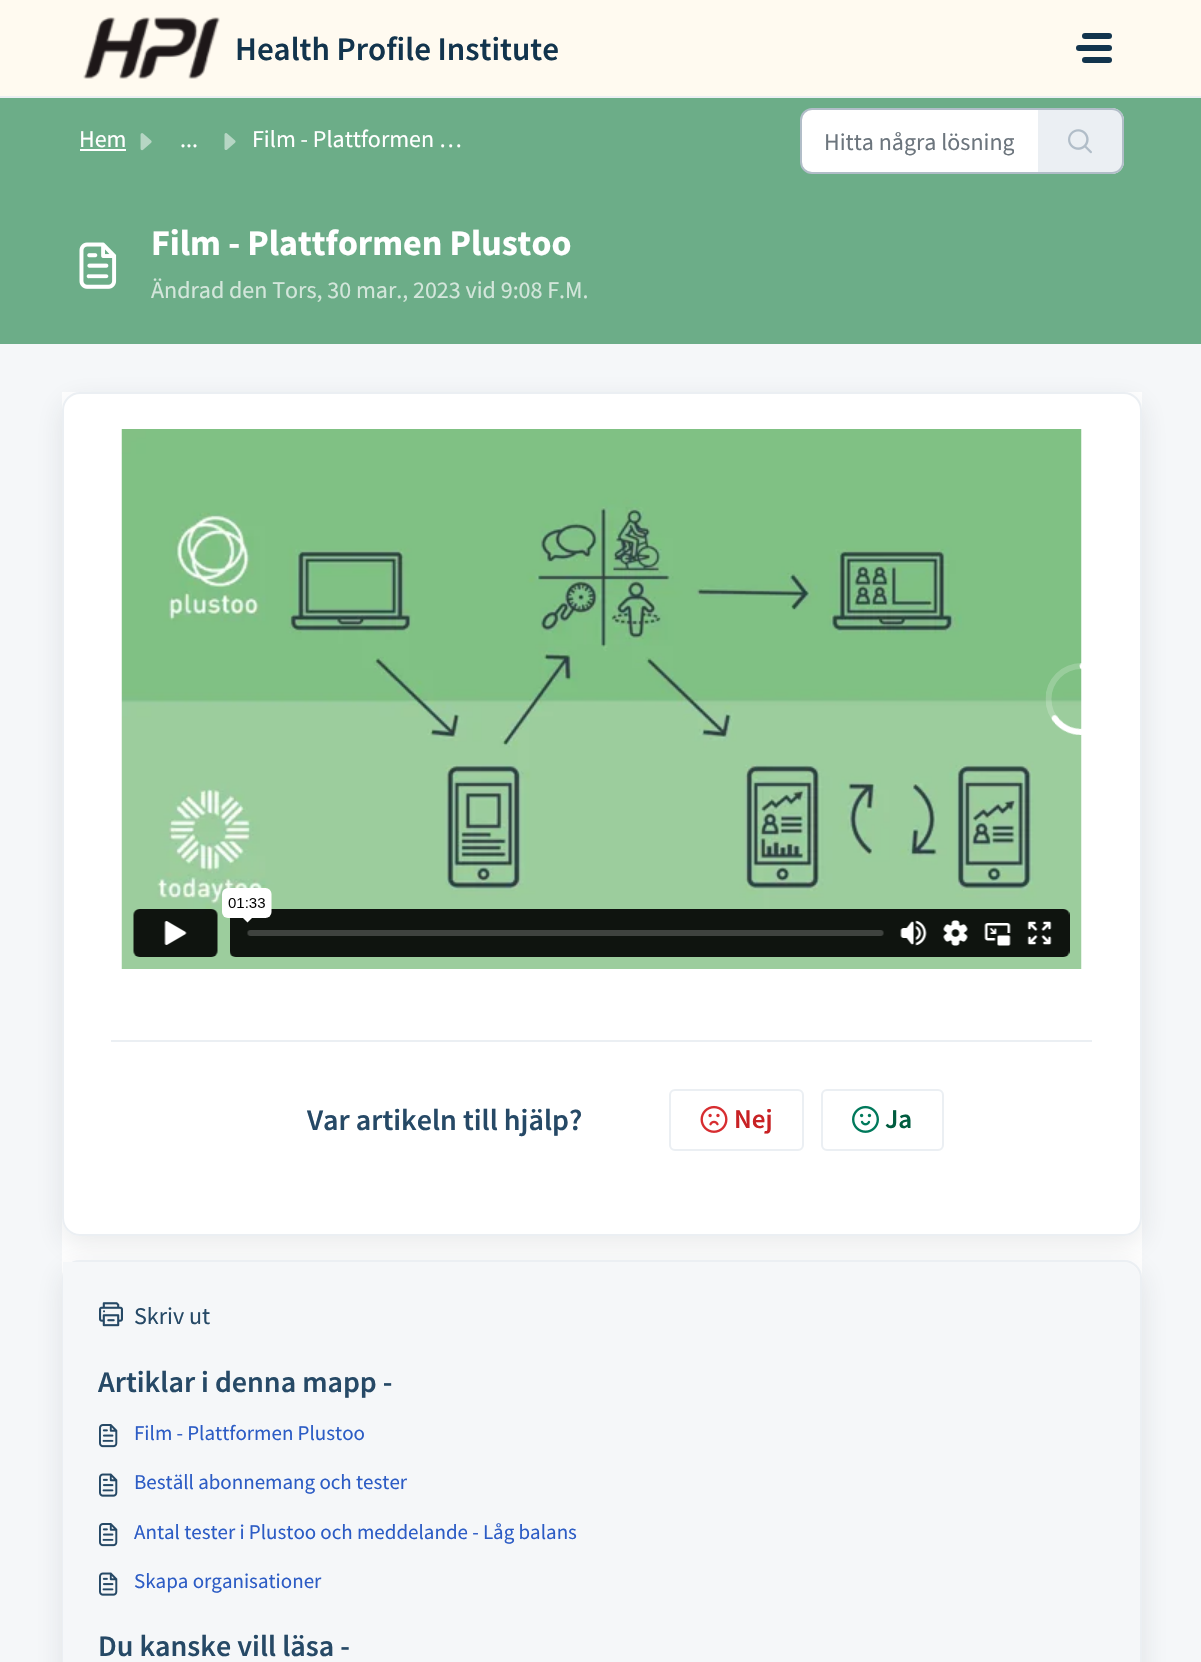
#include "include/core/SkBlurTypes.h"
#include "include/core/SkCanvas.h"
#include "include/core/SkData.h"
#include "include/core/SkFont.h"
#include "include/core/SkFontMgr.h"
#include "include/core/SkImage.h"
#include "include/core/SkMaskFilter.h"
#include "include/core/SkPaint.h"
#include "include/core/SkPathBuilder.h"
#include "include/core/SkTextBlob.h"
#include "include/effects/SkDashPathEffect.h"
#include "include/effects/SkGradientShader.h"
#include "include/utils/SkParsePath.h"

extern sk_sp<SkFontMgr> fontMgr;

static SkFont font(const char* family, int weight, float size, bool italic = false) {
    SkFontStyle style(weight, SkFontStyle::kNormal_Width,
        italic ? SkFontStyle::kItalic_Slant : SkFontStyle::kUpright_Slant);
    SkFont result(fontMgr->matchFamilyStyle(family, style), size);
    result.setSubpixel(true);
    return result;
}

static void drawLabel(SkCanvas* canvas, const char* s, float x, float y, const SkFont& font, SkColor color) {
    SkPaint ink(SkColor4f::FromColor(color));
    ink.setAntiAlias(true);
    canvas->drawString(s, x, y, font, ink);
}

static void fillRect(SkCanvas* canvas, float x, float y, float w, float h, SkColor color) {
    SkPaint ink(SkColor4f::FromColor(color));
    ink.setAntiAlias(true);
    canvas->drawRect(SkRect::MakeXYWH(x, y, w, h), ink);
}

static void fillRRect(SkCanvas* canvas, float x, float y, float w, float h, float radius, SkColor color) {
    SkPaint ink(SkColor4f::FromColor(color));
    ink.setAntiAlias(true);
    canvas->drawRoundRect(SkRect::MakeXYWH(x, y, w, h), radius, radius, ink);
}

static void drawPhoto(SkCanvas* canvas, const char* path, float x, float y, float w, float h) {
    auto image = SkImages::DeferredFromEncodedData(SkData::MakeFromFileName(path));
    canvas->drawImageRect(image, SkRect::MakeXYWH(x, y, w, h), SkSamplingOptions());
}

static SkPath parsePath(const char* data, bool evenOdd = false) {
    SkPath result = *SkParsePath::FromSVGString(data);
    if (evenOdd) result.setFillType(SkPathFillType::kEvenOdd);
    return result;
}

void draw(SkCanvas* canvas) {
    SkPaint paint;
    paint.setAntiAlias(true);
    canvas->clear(0xFFF5F7F9);
    fillRect(canvas, 0, 0, 1201, 96, 0xFFFFFAF0);
    fillRect(canvas, 0, 96, 1201, 2, 0xFFEBEFF3);
    drawPhoto(canvas, "assets/img1.png", 83, 17, 137, 62);
    SkFont font1 = font("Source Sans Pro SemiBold", 600, 33);
    drawLabel(canvas, "Health Profile Institute", 235, 60, font1, 0xFF12344D);
    fillRRect(canvas, 1082, 33, 30, 6, 3, 0xFF12344D);
    fillRRect(canvas, 1076, 45, 36, 6, 3, 0xFF12344D);
    fillRRect(canvas, 1082, 57, 30, 6, 3, 0xFF12344D);
    fillRect(canvas, 0, 98, 1201, 246, 0xFF6CAD88);
    SkFont font2 = font("Source Sans Pro", 400, 24);
    drawLabel(canvas, "Hem", 79, 147, font2, 0xFFFFFFFF);
    fillRect(canvas, 80, 149, 46, 2, 0xFFFFFFFF);
    drawPhoto(canvas, "assets/img2.png", 140, 133, 12, 18);
    drawLabel(canvas, "...", 180, 147, font2, 0xFFFFFFFF);
    drawPhoto(canvas, "assets/img3.png", 224, 133, 12, 17);
    drawLabel(canvas, "Film - Plattformen …", 252, 147, font2, 0xFFFFFFFF);
    paint.setColor(0xFFFFFFFF);
    canvas->drawPath(parsePath("M812 109H1039V173H812C806 173 801 168 801 162V120C801 114 806 109 812 109Z"), paint);
    paint.setStroke(true);
    paint.setStrokeWidth(2);
    paint.setColor(0xFFB1BDC8);
    canvas->drawPath(parsePath("M812 109H1039V173H812C806 173 801 168 801 162V120C801 114 806 109 812 109Z"), paint);
    canvas->save();
    canvas->clipRect(SkRect::MakeXYWH(825, 126, 189, 30));
    drawLabel(canvas, "Hitta några lösning", 824, 150, font2, 0xFF6C757D);
    canvas->restore();
    paint.setStroke(false);
    paint.setColor(0xFFEBEFF3);
    canvas->drawPath(parsePath("M1038 108H1112C1118.5 108 1124 113.5 1124 120V162C1124 168.5 1118.5 174 1112 174H1038Z"), paint);
    paint.setColor(0xFFB1BDC8);
    canvas->drawPath(parsePath("M1038 108H1112C1118 108 1124 113 1124 120V162C1124 169 1118 174 1112 174H1038ZM1038 110H1112C1117 110 1122 114 1122 120V162C1122 168 1117 172 1112 172H1038Z", true), paint);
    drawPhoto(canvas, "assets/img4.png", 1068, 129, 24, 25);
    drawPhoto(canvas, "assets/img5.png", 79, 242, 38, 47);
    SkFont font3 = font("Source Sans Pro", 700, 36);
    drawLabel(canvas, "Film - Plattformen Plustoo", 151, 255, font3, 0xFFFFFFFF);
    drawLabel(canvas, "Ändrad den Tors, 30 mar., 2023 vid 9:08 F.M.", 151, 298, font2, 0xFFD3E6DB);
    fillRect(canvas, 62, 392, 1080, 888, 0xFFFFFFFF);
    canvas->save();
    canvas->clipPath(parsePath("M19 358H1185V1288H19ZM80 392H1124C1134 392 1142 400 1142 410V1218C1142 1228 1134 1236 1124 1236H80C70 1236 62 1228 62 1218V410C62 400 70 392 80 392Z", true), true);
    paint.setColor(0x1A27313A);
    paint.setMaskFilter(SkMaskFilter::MakeBlur(kNormal_SkBlurStyle, 14));
    canvas->drawRoundRect(SkRect::MakeXYWH(62, 401, 1080, 844), 18, 18, paint);
    paint.setMaskFilter(nullptr);
    canvas->restore();
    paint.setStroke(true);
    paint.setColor(0xFFEBEFF3);
    canvas->drawRoundRect(SkRect::MakeXYWH(63, 393, 1078, 842), 17, 17, paint);
    drawPhoto(canvas, "assets/img6.png", 121, 429, 961, 540);
    fillRect(canvas, 111, 1040, 981, 2, 0xFFEBEFF3);
    SkFont font4 = font("Source Sans Pro SemiBold", 600, 30);
    drawLabel(canvas, "Var artikeln till hjälp?", 307, 1130, font4, 0xFF264966);
    canvas->drawRoundRect(SkRect::MakeXYWH(670, 1090, 133, 60), 5, 5, paint);
    drawPhoto(canvas, "assets/img7.png", 700, 1105, 28, 28);
    SkFont font5 = font("Source Sans Pro SemiBold", 600, 27);
    drawLabel(canvas, "Nej", 734, 1128, font5, 0xFFC82124);
    canvas->drawRoundRect(SkRect::MakeXYWH(822, 1090, 121, 60), 5, 5, paint);
    drawPhoto(canvas, "assets/img8.png", 852, 1105, 27, 28);
    drawLabel(canvas, "Ja", 885, 1128, font5, 0xFF005C3F);
    paint.setStroke(false);
    paint.setColor(0x1A27313A);
    paint.setMaskFilter(SkMaskFilter::MakeBlur(kNormal_SkBlurStyle, 14));
    canvas->drawRoundRect(SkRect::MakeXYWH(62, 1269, 1080, 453), 18, 18, paint);
    paint.setMaskFilter(nullptr);
    paint.setStroke(true);
    paint.setColor(0xFFEBEFF3);
    canvas->drawRoundRect(SkRect::MakeXYWH(63, 1261, 1078, 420), 17, 17, paint);
    paint.setStroke(false);
    paint.setColor(0xFFF5F7F9);
    canvas->drawPath(parsePath("M63 1262H1122C1132 1262 1140 1270 1140 1280V1662C1140 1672 1132 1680 1122 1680H63Z"), paint);
    drawPhoto(canvas, "assets/img9.png", 99, 1302, 24, 25);
    drawLabel(canvas, "Skriv ut", 134, 1324, font2, 0xFF264966);
    drawLabel(canvas, "Artiklar i denna mapp -", 98, 1392, font4, 0xFF264966);
    drawPhoto(canvas, "assets/img10.png", 99, 1424, 19, 24);
    SkFont font6 = font("Source Sans Pro", 400, 21);
    drawLabel(canvas, "Film - Plattformen Plustoo", 134, 1440, font6, 0xFF2C5CC5);
    drawPhoto(canvas, "assets/img11.png", 99, 1473, 19, 24);
    drawLabel(canvas, "Beställ abonnemang och tester", 134, 1489, font6, 0xFF2C5CC5);
    drawPhoto(canvas, "assets/img10.png", 99, 1523, 19, 24);
    drawLabel(canvas, "Antal tester i Plustoo och meddelande - Låg balans", 134, 1539, font6, 0xFF2C5CC5);
    drawPhoto(canvas, "assets/img11.png", 99, 1572, 19, 24);
    drawLabel(canvas, "Skapa organisationer", 134, 1588, font6, 0xFF2C5CC5);
    drawLabel(canvas, "Du kanske vill läsa -", 98, 1656, font4, 0xFF264966);
}
